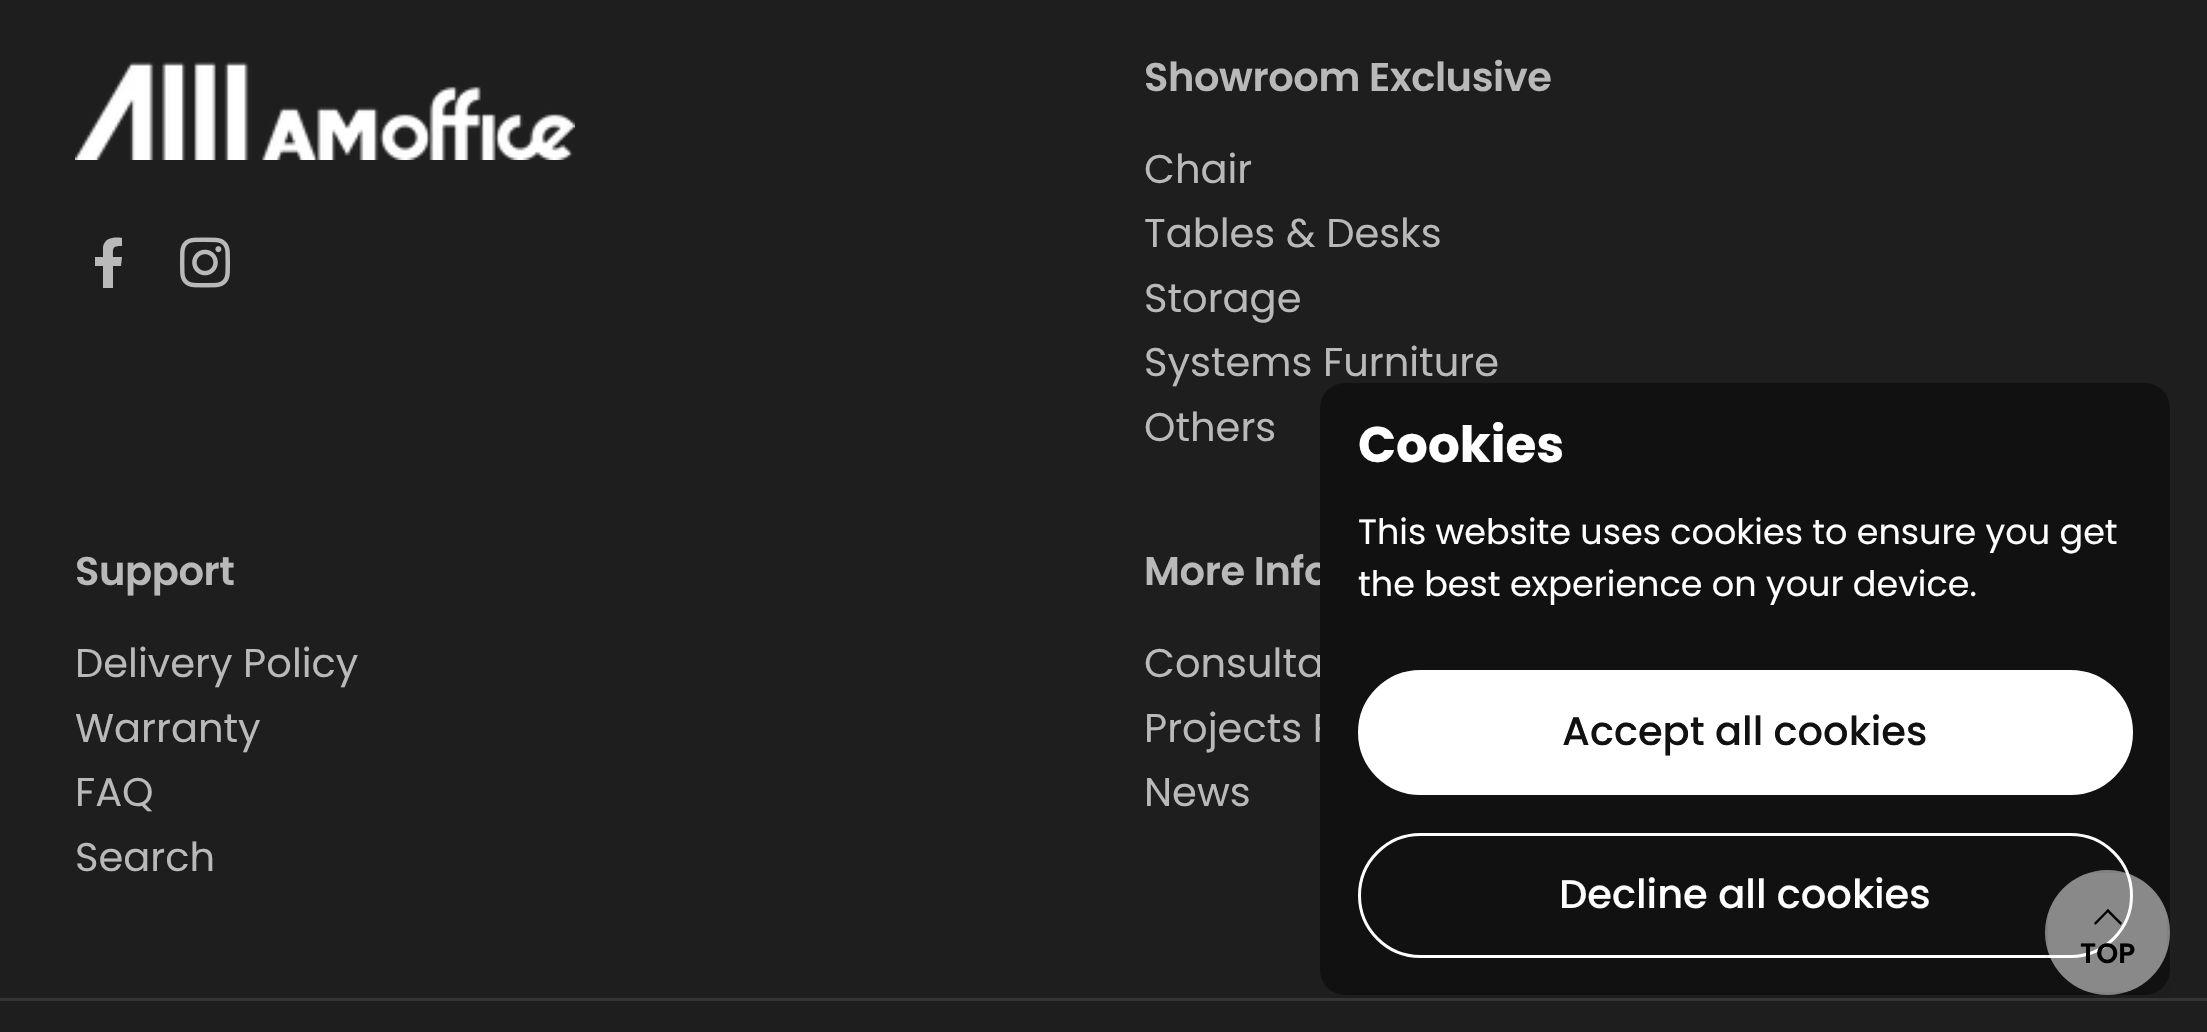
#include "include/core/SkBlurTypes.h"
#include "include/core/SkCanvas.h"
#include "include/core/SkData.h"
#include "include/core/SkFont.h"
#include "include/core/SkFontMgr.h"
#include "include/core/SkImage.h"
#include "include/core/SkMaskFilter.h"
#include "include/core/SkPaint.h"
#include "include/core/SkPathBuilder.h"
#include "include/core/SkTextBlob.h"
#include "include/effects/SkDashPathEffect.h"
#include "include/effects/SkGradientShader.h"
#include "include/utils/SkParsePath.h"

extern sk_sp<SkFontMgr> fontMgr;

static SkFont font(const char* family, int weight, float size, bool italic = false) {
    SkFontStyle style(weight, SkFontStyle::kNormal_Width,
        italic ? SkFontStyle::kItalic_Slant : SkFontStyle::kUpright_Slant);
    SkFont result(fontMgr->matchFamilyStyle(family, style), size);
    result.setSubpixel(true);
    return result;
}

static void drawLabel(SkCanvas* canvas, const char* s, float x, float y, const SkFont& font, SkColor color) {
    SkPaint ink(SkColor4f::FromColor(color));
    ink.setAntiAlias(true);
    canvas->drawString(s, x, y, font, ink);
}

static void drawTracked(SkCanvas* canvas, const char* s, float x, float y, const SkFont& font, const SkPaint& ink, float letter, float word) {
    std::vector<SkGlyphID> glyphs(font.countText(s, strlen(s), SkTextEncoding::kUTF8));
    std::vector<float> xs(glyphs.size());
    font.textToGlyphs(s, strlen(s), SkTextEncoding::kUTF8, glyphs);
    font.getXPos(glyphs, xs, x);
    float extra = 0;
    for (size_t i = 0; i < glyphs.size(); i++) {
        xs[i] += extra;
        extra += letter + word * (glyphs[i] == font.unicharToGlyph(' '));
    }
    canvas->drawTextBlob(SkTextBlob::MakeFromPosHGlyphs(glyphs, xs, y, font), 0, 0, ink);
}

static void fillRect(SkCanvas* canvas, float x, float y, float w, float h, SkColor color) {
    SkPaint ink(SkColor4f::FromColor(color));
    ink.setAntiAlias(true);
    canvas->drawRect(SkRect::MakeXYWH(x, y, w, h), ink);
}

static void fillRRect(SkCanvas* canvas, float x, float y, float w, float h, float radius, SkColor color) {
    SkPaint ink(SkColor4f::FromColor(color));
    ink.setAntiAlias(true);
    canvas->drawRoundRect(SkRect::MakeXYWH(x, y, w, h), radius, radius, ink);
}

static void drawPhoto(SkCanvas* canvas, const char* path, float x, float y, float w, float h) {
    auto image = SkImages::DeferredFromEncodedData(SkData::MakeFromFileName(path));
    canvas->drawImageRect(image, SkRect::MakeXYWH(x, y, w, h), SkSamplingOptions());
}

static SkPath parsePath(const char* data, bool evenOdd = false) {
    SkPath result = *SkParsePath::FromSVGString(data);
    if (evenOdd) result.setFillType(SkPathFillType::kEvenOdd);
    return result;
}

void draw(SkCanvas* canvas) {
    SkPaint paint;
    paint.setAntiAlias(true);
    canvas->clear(0xFF1E1E1E);
    drawPhoto(canvas, "assets/img1.png", 75, 62, 500, 98);
    paint.setColor(0xFFB9B9B9);
    canvas->drawPath(parsePath("M121 266L122 257H113C113 248 112 246 122 246V238C115 237 105 237 103 247V257H95V266H103V288H113V266Z"), paint);
    drawPhoto(canvas, "assets/img2.png", 180, 237, 50, 51);
    SkFont font1 = font("Poppins", 600, 40);
    drawTracked(canvas, "Showroom Exclusive", 1144, 91, font1, paint, -0.4f, 0);
    SkFont font2 = font("Poppins", 400, 40);
    drawLabel(canvas, "Chair", 1144, 183, font2, 0xFFB9B9B9);
    drawLabel(canvas, "Tables & Desks", 1144, 247, font2, 0xFFB9B9B9);
    drawLabel(canvas, "Storage", 1144, 312, font2, 0xFFB9B9B9);
    drawLabel(canvas, "Systems Furniture", 1144, 376, font2, 0xFFB9B9B9);
    drawLabel(canvas, "Others", 1144, 441, font2, 0xFFB9B9B9);
    drawTracked(canvas, "Support", 75, 585, font1, paint, -0.4f, 0);
    drawLabel(canvas, "Delivery Policy", 75, 677, font2, 0xFFB9B9B9);
    drawLabel(canvas, "Warranty", 75, 742, font2, 0xFFB9B9B9);
    drawLabel(canvas, "FAQ", 75, 806, font2, 0xFFB9B9B9);
    drawLabel(canvas, "Search", 75, 871, font2, 0xFFB9B9B9);
    drawTracked(canvas, "More Info", 1144, 585, font1, paint, -0.4f, 0);
    drawLabel(canvas, "Consulta", 1144, 677, font2, 0xFFB9B9B9);
    drawLabel(canvas, "Projects P", 1144, 742, font2, 0xFFB9B9B9);
    drawLabel(canvas, "News", 1144, 806, font2, 0xFFB9B9B9);
    fillRect(canvas, 0, 998, 2207, 3, 0xFF353535);
    fillRRect(canvas, 1320, 383, 850, 612, 25, 0xFF111111);
    SkFont font3 = font("Poppins", 700, 50);
    drawLabel(canvas, "Cookies", 1358, 462, font3, 0xFFFFFFFF);
    SkFont font4 = font("Poppins", 400, 35);
    drawLabel(canvas, "This website uses cookies to ensure you get", 1358, 544, font4, 0xFFFFFFFF);
    drawLabel(canvas, "the best experience on your device.", 1358, 596, font4, 0xFFFFFFFF);
    paint.setColor(0xFFFFFFFF);
    canvas->drawRoundRect(SkRect::MakeXYWH(1359.5f, 671.5f, 772, 122), 61, 61, paint);
    paint.setStroke(true);
    paint.setStrokeWidth(3);
    canvas->drawRoundRect(SkRect::MakeXYWH(1359.5f, 671.5f, 772, 122), 61, 61, paint);
    SkFont font5 = font("Poppins", 500, 40);
    drawLabel(canvas, "Accept all cookies", 1562, 745, font5, 0xFF111111);
    canvas->drawRoundRect(SkRect::MakeXYWH(1359.5f, 834.5f, 772, 122), 61, 61, paint);
    drawLabel(canvas, "Decline all cookies", 1559, 908, font5, 0xFFFFFFFF);
    paint.setStroke(false);
    paint.setColor(0x80FFFFFF);
    canvas->drawCircle(2107.5f, 932.5f, 62.5f, paint);
    paint.setStroke(true);
    paint.setColor(0x0D000000);
    canvas->drawRect(SkRect::MakeXYWH(2046.5f, 871.5f, 122, 122), paint);
    paint.setStroke(false);
    paint.setColor(0xFF000000);
    canvas->drawPath(parsePath("M2095.5 925L2109.5 910.5L2108 909L2094 923Z"), paint);
    canvas->drawPath(parsePath("M2122 923L2108 909L2106 910.5L2120.5 925Z"), paint);
    SkFont font6 = font("Poppins", 600, 28);
    drawLabel(canvas, "TOP", 2080, 963, font6, 0xFF000000);
}
